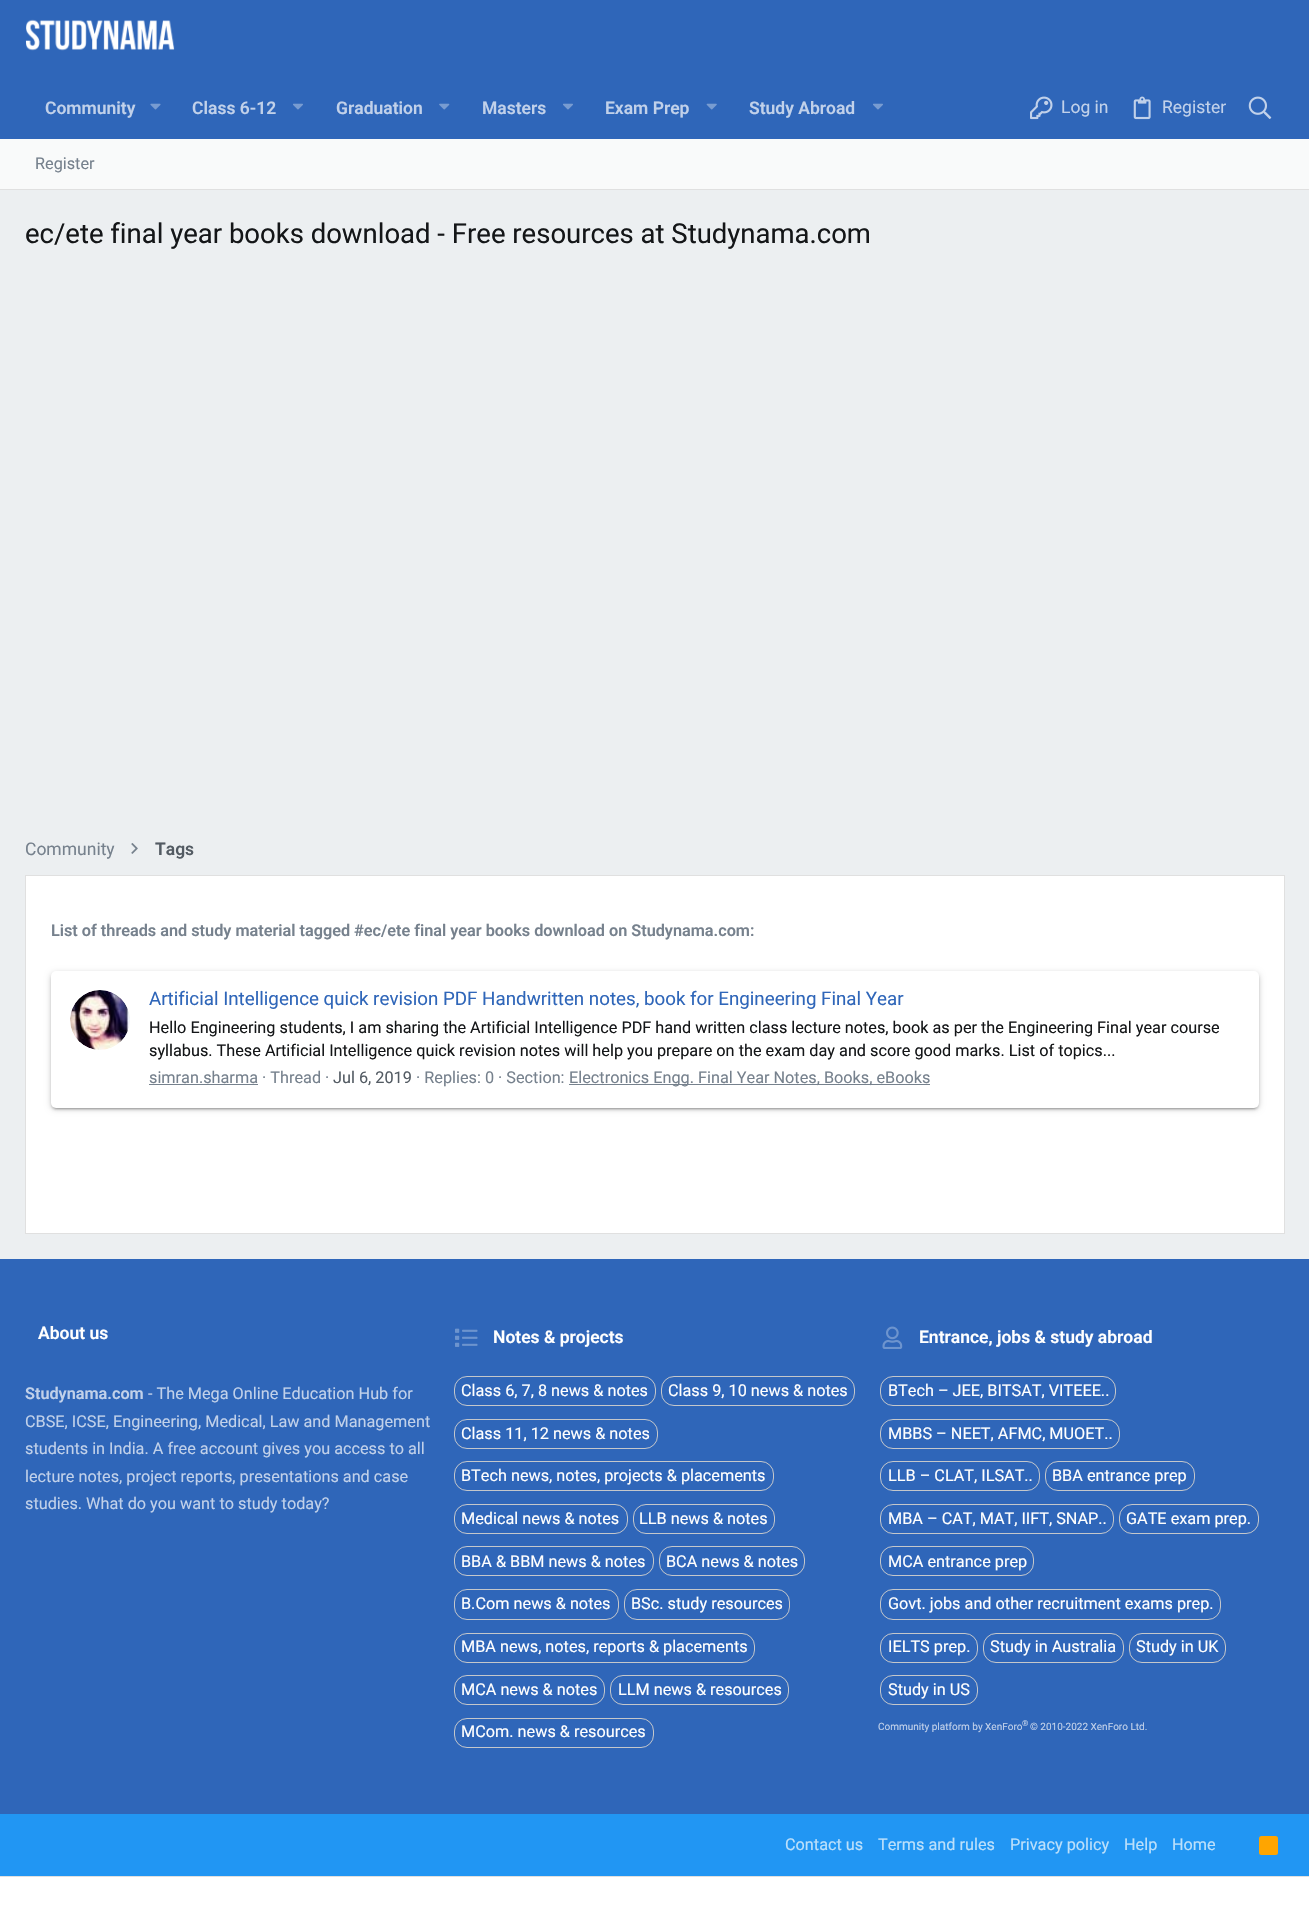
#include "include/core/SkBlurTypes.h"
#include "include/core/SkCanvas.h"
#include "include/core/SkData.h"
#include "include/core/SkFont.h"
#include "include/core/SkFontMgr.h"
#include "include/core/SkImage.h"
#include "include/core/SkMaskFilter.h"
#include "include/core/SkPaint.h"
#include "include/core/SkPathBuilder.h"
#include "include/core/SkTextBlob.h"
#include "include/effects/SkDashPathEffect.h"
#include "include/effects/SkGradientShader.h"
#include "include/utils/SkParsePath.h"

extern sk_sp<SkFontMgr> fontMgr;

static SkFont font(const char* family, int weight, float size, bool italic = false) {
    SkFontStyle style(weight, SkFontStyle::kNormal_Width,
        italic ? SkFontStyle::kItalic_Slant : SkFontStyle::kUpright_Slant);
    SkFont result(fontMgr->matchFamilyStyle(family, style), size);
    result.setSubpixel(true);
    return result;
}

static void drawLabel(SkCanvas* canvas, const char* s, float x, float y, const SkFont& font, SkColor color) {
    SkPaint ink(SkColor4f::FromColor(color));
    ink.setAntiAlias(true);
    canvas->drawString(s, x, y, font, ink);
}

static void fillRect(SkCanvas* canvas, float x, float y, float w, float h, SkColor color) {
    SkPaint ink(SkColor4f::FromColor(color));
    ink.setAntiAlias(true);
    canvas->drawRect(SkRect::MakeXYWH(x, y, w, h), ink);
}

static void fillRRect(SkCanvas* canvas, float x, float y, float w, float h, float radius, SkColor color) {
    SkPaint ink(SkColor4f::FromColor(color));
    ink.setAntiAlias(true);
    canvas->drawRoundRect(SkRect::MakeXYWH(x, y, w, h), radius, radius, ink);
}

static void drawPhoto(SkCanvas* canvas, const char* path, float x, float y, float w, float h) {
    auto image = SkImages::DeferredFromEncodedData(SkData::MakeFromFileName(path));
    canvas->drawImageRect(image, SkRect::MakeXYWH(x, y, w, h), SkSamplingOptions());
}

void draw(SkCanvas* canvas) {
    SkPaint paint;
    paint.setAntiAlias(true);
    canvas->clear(0xFFECEFF1);
    fillRect(canvas, 0, 0, 1309, 139, 0xFF2F66B9);
    drawPhoto(canvas, "assets/img1.png", 25, 19, 150, 32);
    SkFont font1 = font("Roboto", 600, 17.5f);
    drawLabel(canvas, "Community", 45, 114, font1, 0xFFC1D1EA);
    drawPhoto(canvas, "assets/img2.png", 150, 103, 11, 7);
    drawLabel(canvas, "Class 6-12", 192, 114, font1, 0xFFC1D1EA);
    drawPhoto(canvas, "assets/img3.png", 293, 103, 10, 7);
    drawLabel(canvas, "Graduation", 336, 114, font1, 0xFFC1D1EA);
    drawPhoto(canvas, "assets/img4.png", 439, 103, 11, 7);
    drawLabel(canvas, "Masters", 482, 114, font1, 0xFFC1D1EA);
    drawPhoto(canvas, "assets/img3.png", 563, 103, 10, 7);
    drawLabel(canvas, "Exam Prep", 605, 114, font1, 0xFFC1D1EA);
    drawPhoto(canvas, "assets/img5.png", 706, 103, 11, 7);
    drawLabel(canvas, "Study Abroad", 749, 114, font1, 0xFFC1D1EA);
    drawPhoto(canvas, "assets/img3.png", 873, 103, 10, 7);
    drawPhoto(canvas, "assets/img6.png", 1030, 96, 23, 24);
    SkFont font2 = font("Roboto", 400, 17.5f);
    drawLabel(canvas, "Log in", 1061, 113, font2, 0xFFC1D1EA);
    drawPhoto(canvas, "assets/img7.png", 1133, 96, 18, 24);
    drawLabel(canvas, "Register", 1162, 113, font2, 0xFFC1D1EA);
    drawPhoto(canvas, "assets/img8.png", 1248, 96, 24, 23);
    fillRect(canvas, 0, 139, 1309, 50, 0xFFF9FAFA);
    fillRect(canvas, 0, 189, 1309, 1, 0xFFE0E0E0);
    SkFont font3 = font("Roboto", 400, 16.25f);
    drawLabel(canvas, "Register", 35, 169, font3, 0xFF76818D);
    SkFont font4 = font("Roboto", 400, 27.5f);
    drawLabel(canvas, "ec/ete final year books download - Free resources at Studynama.com", 25, 243, font4, 0xFF141618);
    drawLabel(canvas, "Community", 25, 855, font2, 0xFF76818D);
    drawPhoto(canvas, "assets/img9.png", 131, 843, 7, 11);
    drawLabel(canvas, "Tags", 155, 855, font1, 0xFF535B63);
    paint.setColor(0xFFFFFFFF);
    canvas->drawRect(SkRect::MakeXYWH(25.5f, 875.5f, 1259, 358), paint);
    paint.setStroke(true);
    paint.setStrokeWidth(1);
    paint.setColor(0xFFE0E0E0);
    canvas->drawRect(SkRect::MakeXYWH(25.5f, 875.5f, 1259, 358), paint);
    SkFont font5 = font("Roboto", 600, 16.25f);
    drawLabel(canvas, "List of threads and study material tagged #ec/ete final year books download on Studynama.com:", 51, 936, font5, 0xFF76818D);
    paint.setStroke(false);
    paint.setColor(0x33000000);
    paint.setMaskFilter(SkMaskFilter::MakeBlur(kNormal_SkBlurStyle, 3));
    canvas->drawRoundRect(SkRect::MakeXYWH(51, 973, 1208, 136), 5, 5, paint);
    paint.setMaskFilter(nullptr);
    paint.setColor(0x1F000000);
    paint.setMaskFilter(SkMaskFilter::MakeBlur(kNormal_SkBlurStyle, 0.5f));
    canvas->drawRoundRect(SkRect::MakeXYWH(54, 978, 1202, 131), 2.5f, 2.5f, paint);
    paint.setMaskFilter(nullptr);
    paint.setColor(0x24000000);
    paint.setMaskFilter(SkMaskFilter::MakeBlur(kNormal_SkBlurStyle, 1));
    canvas->drawRoundRect(SkRect::MakeXYWH(51, 974, 1208, 136), 5, 5, paint);
    paint.setMaskFilter(nullptr);
    fillRRect(canvas, 51, 971, 1208, 137, 5, 0xFFFFFFFF);
    drawPhoto(canvas, "assets/img10.png", 70, 990, 60, 60);
    SkFont font6 = font("Roboto", 400, 18.75f);
    drawLabel(canvas, "Artificial Intelligence quick revision PDF Handwritten notes, book for Engineering Final Year", 149, 1005, font6, 0xFF2F66B9);
    drawLabel(canvas, "Hello Engineering students, I am sharing the Artificial Intelligence PDF hand written class lecture notes, book as per the Engineering Final year course", 149, 1033, font3, 0xFF141618);
    drawLabel(canvas, "syllabus. These Artificial Intelligence quick revision notes will help you prepare on the exam day and score good marks. List of topics...", 149, 1056, font3, 0xFF141618);
    drawLabel(canvas, "simran.sharma · Thread ·", 149, 1083, font3, 0xFF76818D);
    fillRect(canvas, 149, 1084, 109, 1, 0xFF76818D);
    drawLabel(canvas, "Jul 6, 2019", 333, 1083, font3, 0xFF535B63);
    drawLabel(canvas, "· Replies: 0 · Section:", 416, 1083, font3, 0xFF76818D);
    fillRect(canvas, 569, 1084, 361, 1, 0xFF76818D);
    drawLabel(canvas, "Electronics Engg. Final Year Notes, Books, eBooks", 569, 1083, font3, 0xFF76818D);
    fillRect(canvas, 0, 1259, 1309, 555, 0xFF2F66B9);
    drawLabel(canvas, "About us", 38, 1339, font1, 0xFFFFFFFF);
    drawLabel(canvas, "Studynama.com", 25, 1399, font5, 0xFFC1D1EA);
    drawLabel(canvas, "- The Mega Online Education Hub for", 148, 1399, font3, 0xFFC1D1EA);
    drawLabel(canvas, "CBSE, ICSE, Engineering, Medical, Law and Management", 25, 1427, font3, 0xFFC1D1EA);
    drawLabel(canvas, "students in India. A free account gives you access to all", 25, 1454, font3, 0xFFC1D1EA);
    drawLabel(canvas, "lecture notes, project reports, presentations and case", 25, 1482, font3, 0xFFC1D1EA);
    drawLabel(canvas, "studies. What do you want to study today?", 25, 1509, font3, 0xFFC1D1EA);
    drawPhoto(canvas, "assets/img11.png", 455, 1328, 23, 19);
    drawLabel(canvas, "Notes & projects", 493, 1343, font1, 0xFFFFFFFF);
    paint.setStroke(true);
    paint.setColor(0xFFC4C7CB);
    canvas->drawRoundRect(SkRect::MakeXYWH(454.5f, 1376.5f, 201, 29), 12.5f, 12.5f, paint);
    drawLabel(canvas, "Class 6, 7, 8 news & notes", 461, 1396, font3, 0xFFFFFFFF);
    canvas->drawRoundRect(SkRect::MakeXYWH(661.5f, 1376.5f, 193, 29), 12.5f, 12.5f, paint);
    drawLabel(canvas, "Class 9, 10 news & notes", 668, 1396, font3, 0xFFFFFFFF);
    canvas->drawRoundRect(SkRect::MakeXYWH(454.5f, 1419.5f, 203, 29), 12.5f, 12.5f, paint);
    drawLabel(canvas, "Class 11, 12 news & notes", 461, 1439, font3, 0xFFFFFFFF);
    canvas->drawRoundRect(SkRect::MakeXYWH(454.5f, 1461.5f, 319, 29), 12.5f, 12.5f, paint);
    drawLabel(canvas, "BTech news, notes, projects & placements", 461, 1481, font3, 0xFFFFFFFF);
    canvas->drawRoundRect(SkRect::MakeXYWH(454.5f, 1504.5f, 173, 29), 12.5f, 12.5f, paint);
    drawLabel(canvas, "Medical news & notes", 461, 1524, font3, 0xFFFFFFFF);
    canvas->drawRoundRect(SkRect::MakeXYWH(633.5f, 1504.5f, 141, 29), 12.5f, 12.5f, paint);
    drawLabel(canvas, "LLB news & notes", 639, 1524, font3, 0xFFFFFFFF);
    canvas->drawRoundRect(SkRect::MakeXYWH(454.5f, 1546.5f, 199, 29), 12.5f, 12.5f, paint);
    drawLabel(canvas, "BBA & BBM news & notes", 461, 1567, font3, 0xFFFFFFFF);
    canvas->drawRoundRect(SkRect::MakeXYWH(659.5f, 1546.5f, 145, 29), 12.5f, 12.5f, paint);
    drawLabel(canvas, "BCA news & notes", 666, 1567, font3, 0xFFFFFFFF);
    canvas->drawRoundRect(SkRect::MakeXYWH(454.5f, 1589.5f, 164, 30), 12.5f, 12.5f, paint);
    drawLabel(canvas, "B.Com news & notes", 461, 1609, font3, 0xFFFFFFFF);
    canvas->drawRoundRect(SkRect::MakeXYWH(624.5f, 1589.5f, 165, 30), 12.5f, 12.5f, paint);
    drawLabel(canvas, "BSc. study resources", 631, 1609, font3, 0xFFFFFFFF);
    canvas->drawRoundRect(SkRect::MakeXYWH(454.5f, 1633.5f, 300, 29), 12.5f, 12.5f, paint);
    drawLabel(canvas, "MBA news, notes, reports & placements", 461, 1652, font3, 0xFFFFFFFF);
    canvas->drawRoundRect(SkRect::MakeXYWH(454.5f, 1675.5f, 150, 29), 12.5f, 12.5f, paint);
    drawLabel(canvas, "MCA news & notes", 461, 1695, font3, 0xFFFFFFFF);
    canvas->drawRoundRect(SkRect::MakeXYWH(610.5f, 1675.5f, 178, 29), 12.5f, 12.5f, paint);
    drawLabel(canvas, "LLM news & resources", 618, 1695, font3, 0xFFFFFFFF);
    canvas->drawRoundRect(SkRect::MakeXYWH(454.5f, 1718.5f, 199, 29), 12.5f, 12.5f, paint);
    drawLabel(canvas, "MCom. news & resources", 461, 1737, font3, 0xFFFFFFFF);
    drawPhoto(canvas, "assets/img12.png", 882, 1326, 21, 23);
    drawLabel(canvas, "Entrance, jobs & study abroad", 919, 1343, font1, 0xFFFFFFFF);
    canvas->drawRoundRect(SkRect::MakeXYWH(880.5f, 1376.5f, 235, 29), 12.5f, 12.5f, paint);
    drawLabel(canvas, "BTech – JEE, BITSAT, VITEEE..", 888, 1396, font3, 0xFFFFFFFF);
    canvas->drawRoundRect(SkRect::MakeXYWH(880.5f, 1419.5f, 239, 29), 12.5f, 12.5f, paint);
    drawLabel(canvas, "MBBS – NEET, AFMC, MUOET..", 888, 1439, font3, 0xFFFFFFFF);
    canvas->drawRoundRect(SkRect::MakeXYWH(880.5f, 1461.5f, 159, 29), 12.5f, 12.5f, paint);
    drawLabel(canvas, "LLB – CLAT, ILSAT..", 888, 1481, font3, 0xFFFFFFFF);
    canvas->drawRoundRect(SkRect::MakeXYWH(1045.5f, 1461.5f, 149, 29), 12.5f, 12.5f, paint);
    drawLabel(canvas, "BBA entrance prep", 1052, 1481, font3, 0xFFFFFFFF);
    canvas->drawRoundRect(SkRect::MakeXYWH(880.5f, 1504.5f, 233, 29), 12.5f, 12.5f, paint);
    drawLabel(canvas, "MBA – CAT, MAT, IIFT, SNAP..", 888, 1524, font3, 0xFFFFFFFF);
    canvas->drawRoundRect(SkRect::MakeXYWH(1119.5f, 1504.5f, 139, 29), 12.5f, 12.5f, paint);
    drawLabel(canvas, "GATE exam prep.", 1126, 1524, font3, 0xFFFFFFFF);
    canvas->drawRoundRect(SkRect::MakeXYWH(880.5f, 1546.5f, 153, 29), 12.5f, 12.5f, paint);
    drawLabel(canvas, "MCA entrance prep", 888, 1567, font3, 0xFFFFFFFF);
    canvas->drawRoundRect(SkRect::MakeXYWH(880.5f, 1589.5f, 340, 30), 12.5f, 12.5f, paint);
    drawLabel(canvas, "Govt. jobs and other recruitment exams prep.", 888, 1609, font3, 0xFFFFFFFF);
    canvas->drawRoundRect(SkRect::MakeXYWH(880.5f, 1633.5f, 97, 29), 12.5f, 12.5f, paint);
    drawLabel(canvas, "IELTS prep.", 888, 1652, font3, 0xFFFFFFFF);
    canvas->drawRoundRect(SkRect::MakeXYWH(983.5f, 1633.5f, 140, 29), 12.5f, 12.5f, paint);
    drawLabel(canvas, "Study in Australia", 990, 1652, font3, 0xFFFFFFFF);
    canvas->drawRoundRect(SkRect::MakeXYWH(1129.5f, 1633.5f, 96, 29), 12.5f, 12.5f, paint);
    drawLabel(canvas, "Study in UK", 1136, 1652, font3, 0xFFFFFFFF);
    canvas->drawRoundRect(SkRect::MakeXYWH(880.5f, 1675.5f, 97, 29), 12.5f, 12.5f, paint);
    drawLabel(canvas, "Study in US", 888, 1695, font3, 0xFFFFFFFF);
    SkFont font7 = font("Roboto", 400, 10);
    drawLabel(canvas, "Community platform by XenForo", 878, 1730, font7, 0xFFC1D1EA);
    SkFont font8 = font("Roboto", 400, 8);
    drawLabel(canvas, "®", 1022, 1726, font8, 0xFFC1D1EA);
    drawLabel(canvas, "© 2010-2022 XenForo Ltd.", 1030, 1730, font7, 0xFFC1D1EA);
    fillRect(canvas, 0, 1814, 1309, 62, 0xFF2196F3);
    drawLabel(canvas, "Contact us", 785, 1850, font3, 0xFFBCE0FB);
    drawLabel(canvas, "Terms and rules", 878, 1850, font3, 0xFFBCE0FB);
    drawLabel(canvas, "Privacy policy", 1010, 1850, font3, 0xFFBCE0FB);
    drawLabel(canvas, "Help", 1124, 1850, font3, 0xFFBCE0FB);
    drawLabel(canvas, "Home", 1172, 1850, font3, 0xFFBCE0FB);
    fillRRect(canvas, 1259, 1836, 19, 19, 2.5f, 0xFFFFA500);
    fillRect(canvas, 0, 1877, 1309, 38, 0xFFFFFFFF);
    fillRect(canvas, 0, 1876, 1309, 1, 0xFFE0E0E0);
}
